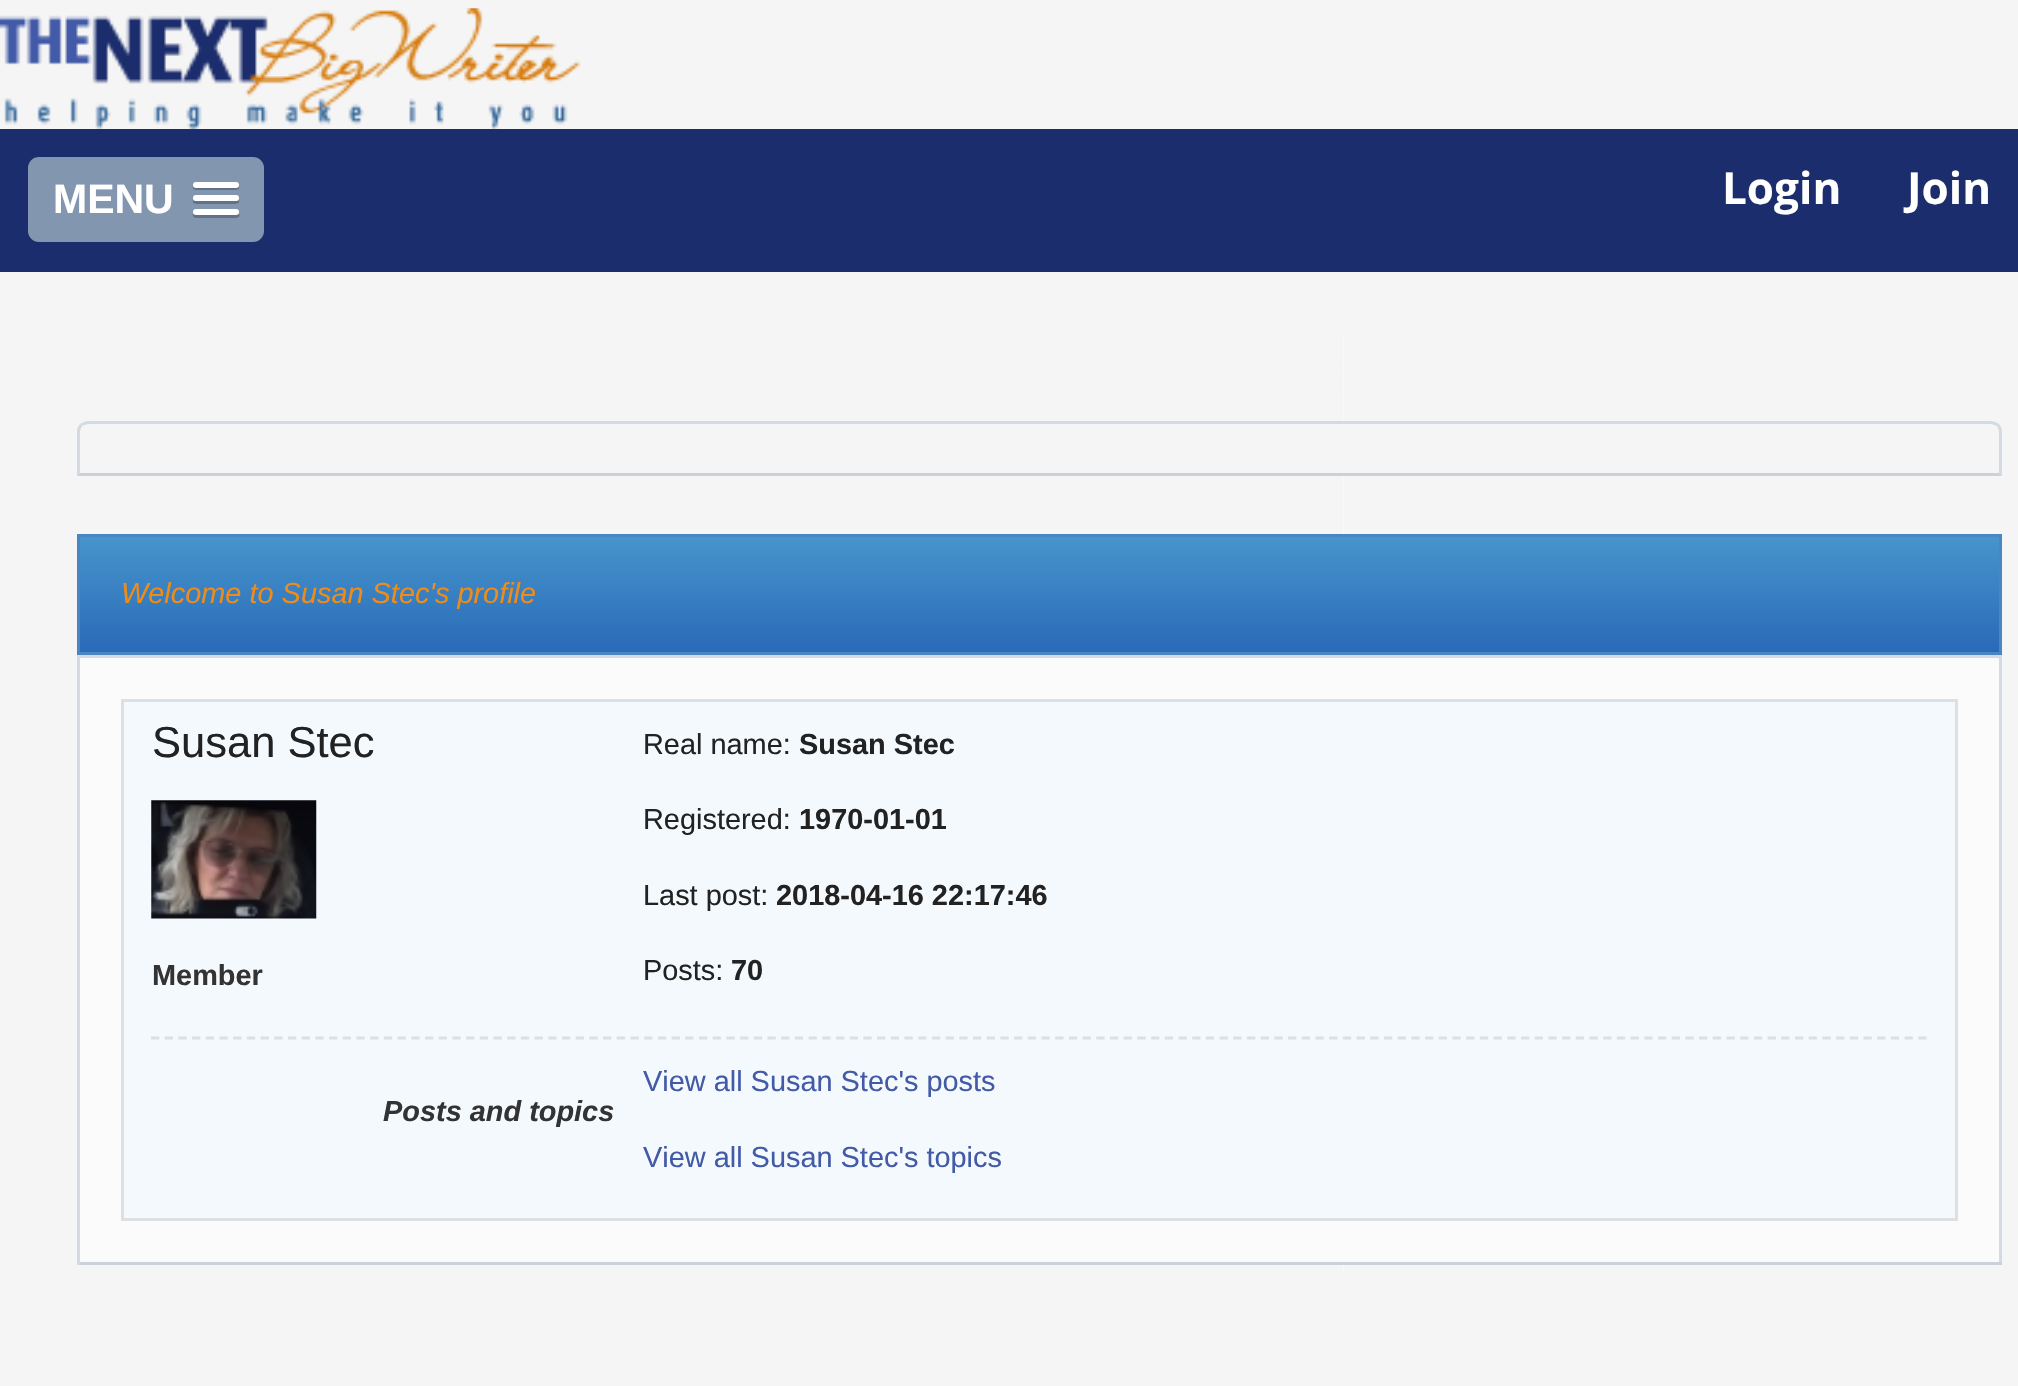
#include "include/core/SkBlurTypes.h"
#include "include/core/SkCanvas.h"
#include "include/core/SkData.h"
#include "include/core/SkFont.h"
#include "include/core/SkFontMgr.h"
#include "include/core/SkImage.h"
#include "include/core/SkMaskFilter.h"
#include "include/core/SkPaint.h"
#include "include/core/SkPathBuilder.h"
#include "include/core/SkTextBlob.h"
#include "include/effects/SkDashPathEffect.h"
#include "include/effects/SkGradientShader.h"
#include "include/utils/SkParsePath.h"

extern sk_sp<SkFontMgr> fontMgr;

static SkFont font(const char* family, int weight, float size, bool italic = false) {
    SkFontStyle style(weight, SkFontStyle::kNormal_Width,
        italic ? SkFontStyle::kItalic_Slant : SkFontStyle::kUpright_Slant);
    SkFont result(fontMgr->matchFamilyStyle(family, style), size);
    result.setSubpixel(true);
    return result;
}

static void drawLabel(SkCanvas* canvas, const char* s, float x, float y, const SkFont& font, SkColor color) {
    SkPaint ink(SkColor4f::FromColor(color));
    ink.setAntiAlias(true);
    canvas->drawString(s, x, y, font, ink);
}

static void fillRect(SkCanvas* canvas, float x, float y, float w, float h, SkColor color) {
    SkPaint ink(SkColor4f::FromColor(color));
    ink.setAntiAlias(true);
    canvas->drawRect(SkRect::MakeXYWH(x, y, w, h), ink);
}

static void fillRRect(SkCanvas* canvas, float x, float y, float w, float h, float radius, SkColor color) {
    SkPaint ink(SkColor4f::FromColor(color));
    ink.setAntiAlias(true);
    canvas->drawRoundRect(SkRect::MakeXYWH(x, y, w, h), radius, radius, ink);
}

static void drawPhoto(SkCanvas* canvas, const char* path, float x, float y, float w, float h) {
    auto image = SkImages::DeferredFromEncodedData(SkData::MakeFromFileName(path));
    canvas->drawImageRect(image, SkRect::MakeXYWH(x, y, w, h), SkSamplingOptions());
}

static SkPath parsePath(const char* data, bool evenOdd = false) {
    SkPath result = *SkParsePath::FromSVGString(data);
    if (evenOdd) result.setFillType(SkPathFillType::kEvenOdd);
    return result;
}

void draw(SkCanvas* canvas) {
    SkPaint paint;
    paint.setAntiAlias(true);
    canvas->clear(0xFFF5F5F5);
    drawPhoto(canvas, "assets/img1.png", 1343, 334, 1, 938);
    fillRect(canvas, 471, 86, 1, 2, 0xFFFAFAFA);
    fillRect(canvas, 0, 129, 2018, 143, 0xFF1B2D6C);
    drawPhoto(canvas, "assets/img2.png", 0, 8, 581, 122);
    fillRRect(canvas, 28, 157, 236, 85, 11, 0xFF8396AF);
    SkFont font1 = font("Liberation Sans", 700, 41);
    drawLabel(canvas, "MENU", 53, 213, font1, 0xFFFFFFFF);
    paint.setColor(0xFF627183);
    canvas->drawPath(parsePath("M193 186C191 191 201 190 203 190H229C231 190 241 191 239 186L237 187H195Z"), paint);
    fillRRect(canvas, 193, 182, 46, 6, 3, 0xFFFFFFFF);
    canvas->drawPath(parsePath("M193 200C191 205 201 204 203 204H229C231 204 241 205 239 200L237 201H195Z"), paint);
    fillRRect(canvas, 193, 195, 46, 6, 3, 0xFFFFFFFF);
    canvas->drawPath(parsePath("M193 214C191 219 201 218 203 218H229C231 218 242 219 239 214H237H195Z"), paint);
    fillRRect(canvas, 193, 209, 46, 6, 3, 0xFFFFFFFF);
    SkFont font2 = font("Open Sans", 700, 44);
    drawLabel(canvas, "Login", 1722, 204, font2, 0xFFFFFFFF);
    drawLabel(canvas, "Join", 1907, 204, font2, 0xFFFFFFFF);
    paint.setColor(0xFFF5F5F5);
    canvas->drawPath(parsePath("M88 421H1991C1997 421 2002 426 2002 432V476H77V432C77 426 82 421 88 421Z"), paint);
    paint.setColor(0xFFD3DAE1);
    canvas->drawPath(parsePath("M89 421C86 421 83 422 80 424L82 426C84 425 86 424 89 424H1990C1993 424 1995 425 1997 426L1999 424C1996 422 1993 421 1990 421Z"), paint);
    canvas->drawPath(parsePath("M1999 424C2001 426 2002 429 2002 432V476L1999 473V432C1999 430 1998 428 1997 426Z"), paint);
    paint.setColor(0xFFCBD1D8);
    canvas->drawPath(parsePath("M2002 476H77L80 473H1999Z"), paint);
    paint.setColor(0xFFD3DAE1);
    canvas->drawPath(parsePath("M77 476L80 473V432C80 430 81 428 82 426L80 424C78 426 77 429 77 432Z"), paint);
    {
        const SkColor colors[] = {0xFF2A6AB8, 0xFF4795CC};
        const float stops[] = {0, 1};
        const SkPoint ends[] = {{1040, 652}, {1040, 536}};
        paint.setShader(SkGradientShader::MakeLinear(ends, colors, stops, 2, SkTileMode::kClamp));
        paint.setAlpha(255);
    }
    canvas->drawRect(SkRect::MakeXYWH(80, 537, 1919, 115), paint);
    paint.setStroke(true);
    paint.setStrokeWidth(3);
    paint.setShader(nullptr);
    paint.setColor(0xFF4A86C1);
    canvas->drawRect(SkRect::MakeXYWH(78.5f, 535.5f, 1922, 118), paint);
    SkFont font3 = font("Liberation Sans", 400, 28.9f, true);
    drawLabel(canvas, "Welcome to Susan Stec's profile", 121, 603, font3, 0xFFEF8C17);
    fillRect(canvas, 80, 658, 1919, 604, 0xFFFBFBFB);
    fillRect(canvas, 77, 655, 1925, 3, 0xFFD3DAE1);
    fillRect(canvas, 1999, 655, 3, 610, 0xFFD3DAE1);
    fillRect(canvas, 77, 1262, 1925, 3, 0xFFCBD1D8);
    fillRect(canvas, 77, 655, 3, 610, 0xFFD3DAE1);
    paint.setStroke(false);
    paint.setColor(0xFFF4F9FD);
    canvas->drawRect(SkRect::MakeXYWH(122.5f, 700.5f, 1834, 519), paint);
    paint.setStroke(true);
    paint.setColor(0xFFDBE0E4);
    canvas->drawRect(SkRect::MakeXYWH(122.5f, 700.5f, 1834, 519), paint);
    SkFont font4 = font("Liberation Sans", 400, 43.5f);
    drawLabel(canvas, "Susan Stec", 152, 757, font4, 0xFF222222);
    drawPhoto(canvas, "assets/img3.png", 151, 800, 166, 119);
    SkFont font5 = font("Liberation Sans", 700, 28.9f);
    drawLabel(canvas, "Member", 152, 985, font5, 0xFF333333);
    SkFont font6 = font("Liberation Sans", 400, 28.9f);
    drawLabel(canvas, "Real name:", 643, 754, font6, 0xFF222222);
    drawLabel(canvas, "Susan Stec", 799, 754, font5, 0xFF222222);
    drawLabel(canvas, "Registered:", 643, 829, font6, 0xFF222222);
    drawLabel(canvas, "1970-01-01", 799, 829, font5, 0xFF222222);
    drawLabel(canvas, "Last post:", 643, 905, font6, 0xFF222222);
    drawLabel(canvas, "2018-04-16 22:17:46", 776, 905, font5, 0xFF222222);
    drawLabel(canvas, "Posts:", 643, 980, font6, 0xFF222222);
    drawLabel(canvas, "70", 731, 980, font5, 0xFF222222);
    paint.setStrokeWidth(2.8f);
    paint.setPathEffect(SkDashPathEffect::Make({{8.25f, 5.45f}}, 0));
    canvas->drawPath(parsePath("M151 1038H1928"), paint);
    paint.setPathEffect(nullptr);
    SkFont font7 = font("Liberation Sans", 700, 28.9f, true);
    drawLabel(canvas, "Posts and topics", 383, 1121, font7, 0xFF333333);
    drawLabel(canvas, "View all Susan Stec's posts", 643, 1091, font6, 0xFF425AA7);
    drawLabel(canvas, "View all Susan Stec's topics", 643, 1167, font6, 0xFF425AA7);
}
